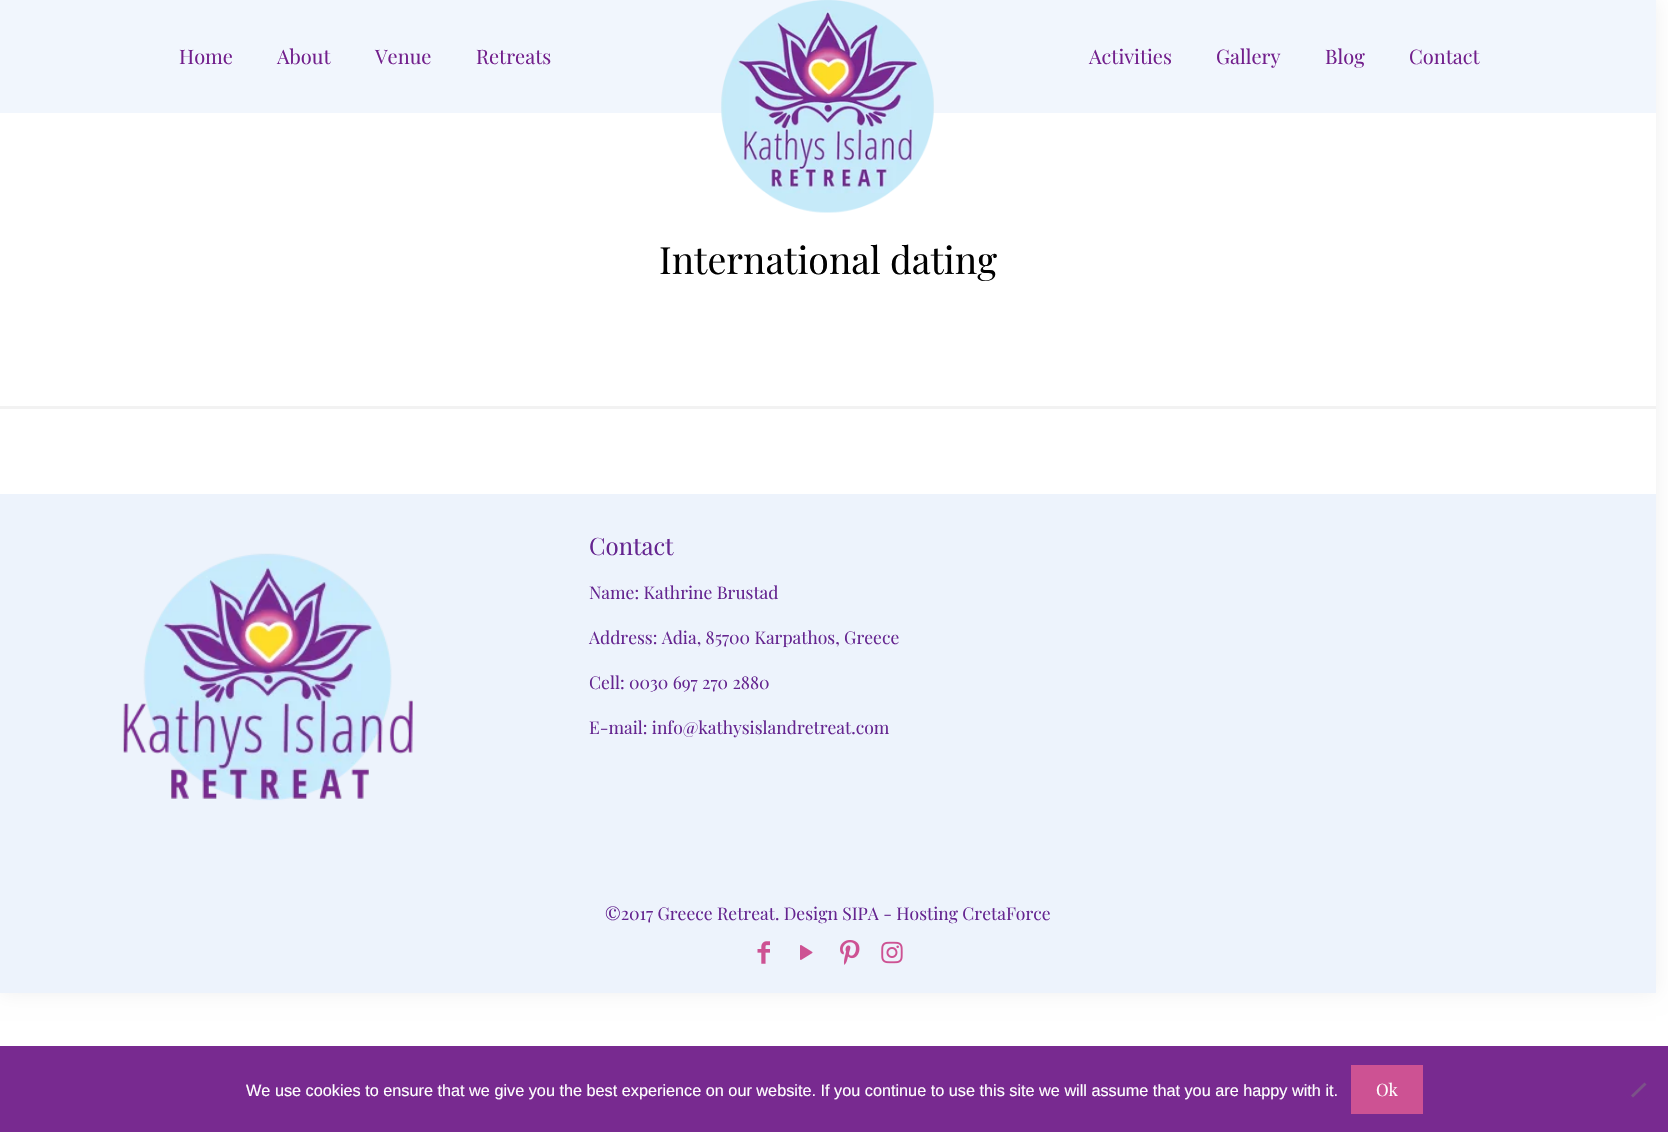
#include "include/core/SkBlurTypes.h"
#include "include/core/SkCanvas.h"
#include "include/core/SkData.h"
#include "include/core/SkFont.h"
#include "include/core/SkFontMgr.h"
#include "include/core/SkImage.h"
#include "include/core/SkMaskFilter.h"
#include "include/core/SkPaint.h"
#include "include/core/SkPathBuilder.h"
#include "include/core/SkTextBlob.h"
#include "include/effects/SkDashPathEffect.h"
#include "include/effects/SkGradientShader.h"
#include "include/utils/SkParsePath.h"

extern sk_sp<SkFontMgr> fontMgr;

static SkFont font(const char* family, int weight, float size, bool italic = false) {
    SkFontStyle style(weight, SkFontStyle::kNormal_Width,
        italic ? SkFontStyle::kItalic_Slant : SkFontStyle::kUpright_Slant);
    SkFont result(fontMgr->matchFamilyStyle(family, style), size);
    result.setSubpixel(true);
    return result;
}

static void drawLabel(SkCanvas* canvas, const char* s, float x, float y, const SkFont& font, SkColor color) {
    SkPaint ink(SkColor4f::FromColor(color));
    ink.setAntiAlias(true);
    canvas->drawString(s, x, y, font, ink);
}

static void fillRect(SkCanvas* canvas, float x, float y, float w, float h, SkColor color) {
    SkPaint ink(SkColor4f::FromColor(color));
    ink.setAntiAlias(true);
    canvas->drawRect(SkRect::MakeXYWH(x, y, w, h), ink);
}

static void drawPhoto(SkCanvas* canvas, const char* path, float x, float y, float w, float h) {
    auto image = SkImages::DeferredFromEncodedData(SkData::MakeFromFileName(path));
    canvas->drawImageRect(image, SkRect::MakeXYWH(x, y, w, h), SkSamplingOptions());
}

static SkPath parsePath(const char* data, bool evenOdd = false) {
    SkPath result = *SkParsePath::FromSVGString(data);
    if (evenOdd) result.setFillType(SkPathFillType::kEvenOdd);
    return result;
}

void draw(SkCanvas* canvas) {
    SkPaint paint;
    paint.setAntiAlias(true);
    canvas->clear(0xFFFFFFFF);
    paint.setColor(0x0F000000);
    paint.setMaskFilter(SkMaskFilter::MakeBlur(kNormal_SkBlurStyle, 9.5f));
    canvas->drawRect(SkRect::MakeXYWH(0, 0, 1656, 993), paint);
    paint.setMaskFilter(nullptr);
    fillRect(canvas, 0, 113, 1656, 381, 0xFFFFFFFF);
    fillRect(canvas, 0, 0, 1656, 113, 0xFFF1F6FD);
    drawPhoto(canvas, "assets/img1.png", 721, 0, 213, 213);
    SkFont font1 = font("Playfair Display", 400, 20);
    drawLabel(canvas, "Home", 179, 64, font1, 0xFF721F8C);
    drawLabel(canvas, "About", 277, 64, font1, 0xFF721F8C);
    drawLabel(canvas, "Venue", 375, 64, font1, 0xFF721F8C);
    drawLabel(canvas, "Retreats", 476, 64, font1, 0xFF721F8C);
    drawLabel(canvas, "Activities", 1089, 64, font1, 0xFF721F8C);
    drawLabel(canvas, "Gallery", 1216, 64, font1, 0xFF721F8C);
    drawLabel(canvas, "Blog", 1325, 64, font1, 0xFF721F8C);
    drawLabel(canvas, "Contact", 1409, 64, font1, 0xFF721F8C);
    SkFont font2 = font("Playfair Display", 400, 37.5f);
    drawLabel(canvas, "International dating", 659, 274, font2, 0xFF000000);
    fillRect(canvas, 0, 406, 1656, 3, 0xFFF2F2F2);
    fillRect(canvas, 0, 494, 1656, 499, 0xFFEDF3FC);
    drawPhoto(canvas, "assets/img2.png", 123, 553, 290, 248);
    SkFont font3 = font("Playfair Display", 400, 24);
    drawLabel(canvas, "Contact", 589, 555, font3, 0xFF652590);
    SkFont font4 = font("Playfair Display", 400, 17.5f);
    drawLabel(canvas, "Name: Kathrine Brustad", 589, 599, font4, 0xFF652590);
    drawLabel(canvas, "Address: Adia, 85700 Karpathos, Greece", 589, 644, font4, 0xFF652590);
    drawLabel(canvas, "Cell: 0030 697 270 2880", 589, 689, font4, 0xFF652590);
    drawLabel(canvas, "E-mail: info@kathysislandretreat.com", 589, 734, font4, 0xFF652590);
    drawLabel(canvas, "©2017 Greece Retreat. Design SIPA - Hosting CretaForce", 605, 920, font4, 0xFF652590);
    drawPhoto(canvas, "assets/img3.png", 757, 941, 13, 23);
    drawPhoto(canvas, "assets/img4.png", 800, 945, 13, 15);
    drawPhoto(canvas, "assets/img5.png", 840, 940, 20, 25);
    drawPhoto(canvas, "assets/img6.png", 881, 941, 22, 23);
    fillRect(canvas, 0, 1046, 1668, 86, 0xFF782A90);
    SkFont font5 = font("Liberation Sans", 400, 16.25f);
    drawLabel(canvas, "We use cookies to ensure that we give you the best experience on our website. If you continue to use this site we will assume that you are happy with it.", 246, 1096, font5, 0xFFFFFFFF);
    fillRect(canvas, 1351, 1065, 72, 49, 0xFFCD5293);
    SkFont font6 = font("Playfair Display", 400, 17);
    drawLabel(canvas, "Ok", 1376, 1096, font6, 0xFFFFFFFF);
    paint.setColor(0xFF7C5588);
    canvas->drawPath(parsePath("M1644.5 1082.5L1646.5 1084.5L1633 1097.5L1631 1095.5Z"), paint);
    canvas->save();
    canvas->clipRect(SkRect::MakeXYWH(1625, 1078, 25, 25));
    paint.setColor(0x12782A90);
    canvas->drawPath(parsePath("M1620 1089.5L1637.5 1071.5L1655 1089.5L1637.5 1107Z"), paint);
    canvas->restore();
}
